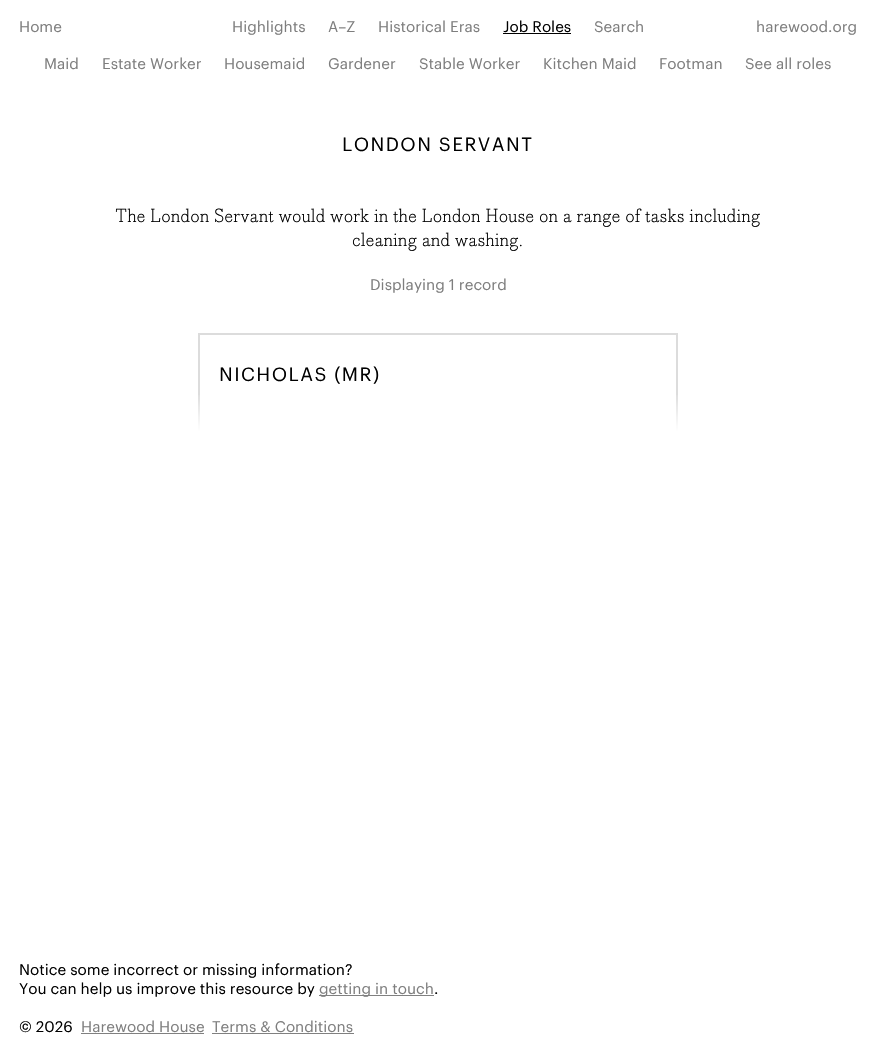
#include "include/core/SkBlurTypes.h"
#include "include/core/SkCanvas.h"
#include "include/core/SkData.h"
#include "include/core/SkFont.h"
#include "include/core/SkFontMgr.h"
#include "include/core/SkImage.h"
#include "include/core/SkMaskFilter.h"
#include "include/core/SkPaint.h"
#include "include/core/SkPathBuilder.h"
#include "include/core/SkTextBlob.h"
#include "include/effects/SkDashPathEffect.h"
#include "include/effects/SkGradientShader.h"
#include "include/utils/SkParsePath.h"

extern sk_sp<SkFontMgr> fontMgr;

static SkFont font(const char* family, int weight, float size, bool italic = false) {
    SkFontStyle style(weight, SkFontStyle::kNormal_Width,
        italic ? SkFontStyle::kItalic_Slant : SkFontStyle::kUpright_Slant);
    SkFont result(fontMgr->matchFamilyStyle(family, style), size);
    result.setSubpixel(true);
    return result;
}

static void drawLabel(SkCanvas* canvas, const char* s, float x, float y, const SkFont& font, SkColor color) {
    SkPaint ink(SkColor4f::FromColor(color));
    ink.setAntiAlias(true);
    canvas->drawString(s, x, y, font, ink);
}

static void drawTracked(SkCanvas* canvas, const char* s, float x, float y, const SkFont& font, const SkPaint& ink, float letter, float word) {
    std::vector<SkGlyphID> glyphs(font.countText(s, strlen(s), SkTextEncoding::kUTF8));
    std::vector<float> xs(glyphs.size());
    font.textToGlyphs(s, strlen(s), SkTextEncoding::kUTF8, glyphs);
    font.getXPos(glyphs, xs, x);
    float extra = 0;
    for (size_t i = 0; i < glyphs.size(); i++) {
        xs[i] += extra;
        extra += letter + word * (glyphs[i] == font.unicharToGlyph(' '));
    }
    canvas->drawTextBlob(SkTextBlob::MakeFromPosHGlyphs(glyphs, xs, y, font), 0, 0, ink);
}

static void fillRect(SkCanvas* canvas, float x, float y, float w, float h, SkColor color) {
    SkPaint ink(SkColor4f::FromColor(color));
    ink.setAntiAlias(true);
    canvas->drawRect(SkRect::MakeXYWH(x, y, w, h), ink);
}

void draw(SkCanvas* canvas) {
    SkPaint paint;
    paint.setAntiAlias(true);
    canvas->clear(0xFFFFFFFF);
    SkFont font1 = font("Graphik", 400, 15);
    drawLabel(canvas, "Job Roles", 503, 32, font1, 0xFF000000);
    fillRect(canvas, 503, 33, 68, 1, 0xFF000000);
    drawLabel(canvas, "Maid", 44, 69, font1, 0xFF7E7E7E);
    drawLabel(canvas, "Estate Worker", 102, 69, font1, 0xFF7E7E7E);
    drawLabel(canvas, "Housemaid", 224, 69, font1, 0xFF7E7E7E);
    drawLabel(canvas, "Gardener", 328, 69, font1, 0xFF7E7E7E);
    drawLabel(canvas, "Stable Worker", 419, 69, font1, 0xFF7E7E7E);
    drawLabel(canvas, "Kitchen Maid", 543, 69, font1, 0xFF7E7E7E);
    drawLabel(canvas, "Footman", 659, 69, font1, 0xFF7E7E7E);
    drawLabel(canvas, "See all roles", 745, 69, font1, 0xFF7E7E7E);
    drawLabel(canvas, "Home", 19, 32, font1, 0xFF7E7E7E);
    drawLabel(canvas, "Highlights", 232, 32, font1, 0xFF7E7E7E);
    drawLabel(canvas, "A–Z", 328, 32, font1, 0xFF7E7E7E);
    drawLabel(canvas, "Historical Eras", 378, 32, font1, 0xFF7E7E7E);
    drawLabel(canvas, "Search", 594, 32, font1, 0xFF7E7E7E);
    drawLabel(canvas, "harewood.org", 756, 32, font1, 0xFF7E7E7E);
    SkFont font2 = font("Graphik", 400, 18.75f);
    paint.setColor(0xFF000000);
    drawTracked(canvas, "LONDON SERVANT", 342, 151, font2, paint, 1.4f, 0);
    SkFont font3 = font("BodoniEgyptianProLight", 300, 18.75f);
    drawLabel(canvas, "The London Servant would work in the London House on a range of tasks including", 115, 222, font3, 0xFF000000);
    drawLabel(canvas, "cleaning and washing.", 352, 246, font3, 0xFF000000);
    drawLabel(canvas, "Displaying 1 record", 370, 290, font1, 0xFF7E7E7E);
    canvas->save();
    canvas->clipRect(SkRect::MakeXYWH(19, 333, 838, 99));
    paint.setStroke(true);
    paint.setStrokeWidth(2);
    paint.setColor(0xFFDCDCDC);
    canvas->drawRect(SkRect::MakeXYWH(199, 334, 478, 378), paint);
    canvas->restore();
    paint.setStroke(false);
    paint.setColor(0xFF000000);
    drawTracked(canvas, "NICHOLAS (MR)", 219, 381, font2, paint, 1.4f, 0);
    {
        const SkColor colors[] = {0x00FFFFFF, 0xFFFFFFFF};
        const float stops[] = {0, 1};
        const SkPoint ends[] = {{438, 392}, {438, 432}};
        paint.setShader(SkGradientShader::MakeLinear(ends, colors, stops, 2, SkTileMode::kClamp));
        paint.setAlpha(255);
    }
    canvas->drawRect(SkRect::MakeXYWH(198, 395, 480, 37), paint);
    drawLabel(canvas, "Notice some incorrect or missing information?", 19, 975, font1, 0xFF000000);
    drawLabel(canvas, "You can help us improve this resource by", 19, 994, font1, 0xFF000000);
    fillRect(canvas, 319, 995, 115, 1, 0xFF808080);
    drawLabel(canvas, "getting in touch", 319, 994, font1, 0xFF7E7E7E);
    drawLabel(canvas, ".", 434, 994, font1, 0xFF000000);
    drawLabel(canvas, "© 2026", 19, 1032, font1, 0xFF000000);
    drawLabel(canvas, "Harewood House", 81, 1032, font1, 0xFF7E7E7E);
    fillRect(canvas, 81, 1033, 123, 1, 0xFF808080);
    drawLabel(canvas, "Terms & Conditions", 212, 1032, font1, 0xFF7E7E7E);
    fillRect(canvas, 212, 1033, 142, 1, 0xFF808080);
}
